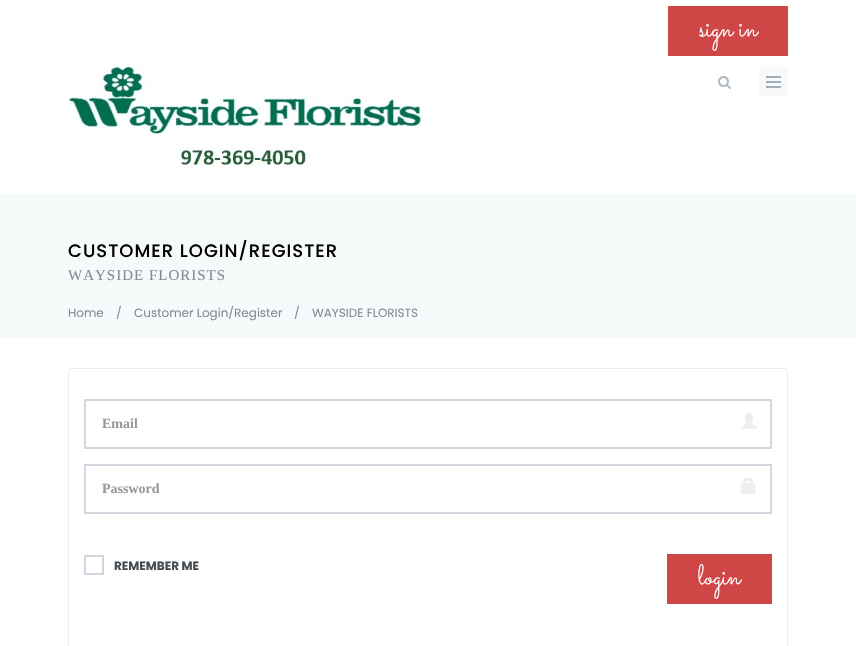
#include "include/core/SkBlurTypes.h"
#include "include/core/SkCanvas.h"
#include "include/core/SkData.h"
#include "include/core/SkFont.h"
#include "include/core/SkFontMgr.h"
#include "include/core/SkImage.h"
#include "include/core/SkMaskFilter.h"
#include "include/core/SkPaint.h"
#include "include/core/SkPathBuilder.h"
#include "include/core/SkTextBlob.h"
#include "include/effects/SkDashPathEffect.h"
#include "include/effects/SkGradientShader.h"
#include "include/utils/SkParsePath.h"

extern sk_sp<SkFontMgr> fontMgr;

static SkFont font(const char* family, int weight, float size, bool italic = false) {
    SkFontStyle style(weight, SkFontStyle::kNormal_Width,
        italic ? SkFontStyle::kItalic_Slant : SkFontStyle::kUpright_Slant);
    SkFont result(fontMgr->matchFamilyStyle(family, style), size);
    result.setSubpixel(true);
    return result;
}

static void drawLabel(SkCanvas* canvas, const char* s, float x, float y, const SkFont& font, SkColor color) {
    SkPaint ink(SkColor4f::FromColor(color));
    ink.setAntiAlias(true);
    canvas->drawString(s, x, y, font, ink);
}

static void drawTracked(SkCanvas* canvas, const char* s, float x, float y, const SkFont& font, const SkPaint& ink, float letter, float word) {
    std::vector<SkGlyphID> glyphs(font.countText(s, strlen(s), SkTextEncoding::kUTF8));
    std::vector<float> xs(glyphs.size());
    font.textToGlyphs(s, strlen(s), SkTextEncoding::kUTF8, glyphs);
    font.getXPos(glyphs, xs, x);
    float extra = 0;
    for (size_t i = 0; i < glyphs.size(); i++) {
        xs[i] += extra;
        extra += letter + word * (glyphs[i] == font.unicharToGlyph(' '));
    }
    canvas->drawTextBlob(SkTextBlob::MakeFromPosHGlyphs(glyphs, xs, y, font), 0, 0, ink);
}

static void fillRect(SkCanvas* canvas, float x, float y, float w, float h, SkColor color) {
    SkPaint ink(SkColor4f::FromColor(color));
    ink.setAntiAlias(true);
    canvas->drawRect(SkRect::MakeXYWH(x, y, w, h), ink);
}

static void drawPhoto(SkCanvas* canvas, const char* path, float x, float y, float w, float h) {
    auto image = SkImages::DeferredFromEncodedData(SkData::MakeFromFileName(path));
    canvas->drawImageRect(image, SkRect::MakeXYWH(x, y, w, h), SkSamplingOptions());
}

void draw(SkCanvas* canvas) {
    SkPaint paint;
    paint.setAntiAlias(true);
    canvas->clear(0xFFFFFFFF);
    fillRect(canvas, 668, 6, 120, 50, 0xFFCF4647);
    SkFont font1 = font("Sacramento", 400, 28);
    drawLabel(canvas, "sign in", 699, 36, font1, 0xFFFFFFFF);
    drawPhoto(canvas, "assets/img1.png", 68, 66, 355, 102);
    drawPhoto(canvas, "assets/img2.png", 718, 76, 13, 13);
    fillRect(canvas, 759, 67, 29, 29, 0xFFF8F9FA);
    fillRect(canvas, 766, 76, 15, 2, 0xFF9FACBA);
    fillRect(canvas, 766, 81, 15, 2, 0xFF9FACBA);
    fillRect(canvas, 766, 86, 15, 2, 0xFF9FACBA);
    fillRect(canvas, 0, 195, 856, 142, 0xFFF7FAFB);
    fillRect(canvas, 0, 194, 856, 1, 0xFFF4F8F9);
    fillRect(canvas, 0, 337, 856, 1, 0xFFF4F8F9);
    SkFont font2 = font("Poppins", 500, 18);
    paint.setColor(0xFF000000);
    drawTracked(canvas, "CUSTOMER LOGIN/REGISTER", 68, 257, font2, paint, 1, 0);
    SkFont font3 = font("Tinos", 400, 15);
    paint.setColor(0xFF7F8C97);
    drawTracked(canvas, "WAYSIDE FLORISTS", 68, 280, font3, paint, 1, 0);
    SkFont font4 = font("Poppins", 400, 12);
    drawLabel(canvas, "Home", 68, 317, font4, 0xFF7F8C97);
    drawLabel(canvas, "/", 116, 317, font4, 0xFF7F8C97);
    drawLabel(canvas, "Customer Login/Register", 134, 317, font4, 0xFF7F8C97);
    drawLabel(canvas, "/", 294, 317, font4, 0xFF7F8C97);
    drawLabel(canvas, "WAYSIDE FLORISTS", 312, 317, font4, 0xFF7F8C97);
    paint.setStroke(true);
    paint.setStrokeWidth(1);
    paint.setColor(0xFFEBEBEB);
    canvas->drawRoundRect(SkRect::MakeXYWH(68.5f, 368.5f, 719, 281), 2.5f, 2.5f, paint);
    paint.setStrokeWidth(2);
    paint.setColor(0xFFD0D7DE);
    canvas->drawRect(SkRect::MakeXYWH(85, 400, 686, 48), paint);
    SkFont font5 = font("Tinos", 700, 14);
    drawLabel(canvas, "Email", 102, 428, font5, 0xFF999999);
    drawPhoto(canvas, "assets/img3.png", 741, 413, 16, 16);
    canvas->drawRect(SkRect::MakeXYWH(85, 465, 686, 48), paint);
    drawLabel(canvas, "Password", 102, 493, font5, 0xFF999999);
    drawPhoto(canvas, "assets/img4.png", 741, 478, 15, 16);
    canvas->drawRect(SkRect::MakeXYWH(85, 556, 18, 18), paint);
    SkFont font6 = font("Poppins", 700, 12);
    drawLabel(canvas, "REMEMBER ME", 114, 570, font6, 0xFF454E56);
    fillRect(canvas, 667, 554, 105, 50, 0xFFCF4647);
    drawLabel(canvas, "login", 698, 584, font1, 0xFFFFFFFF);
}
